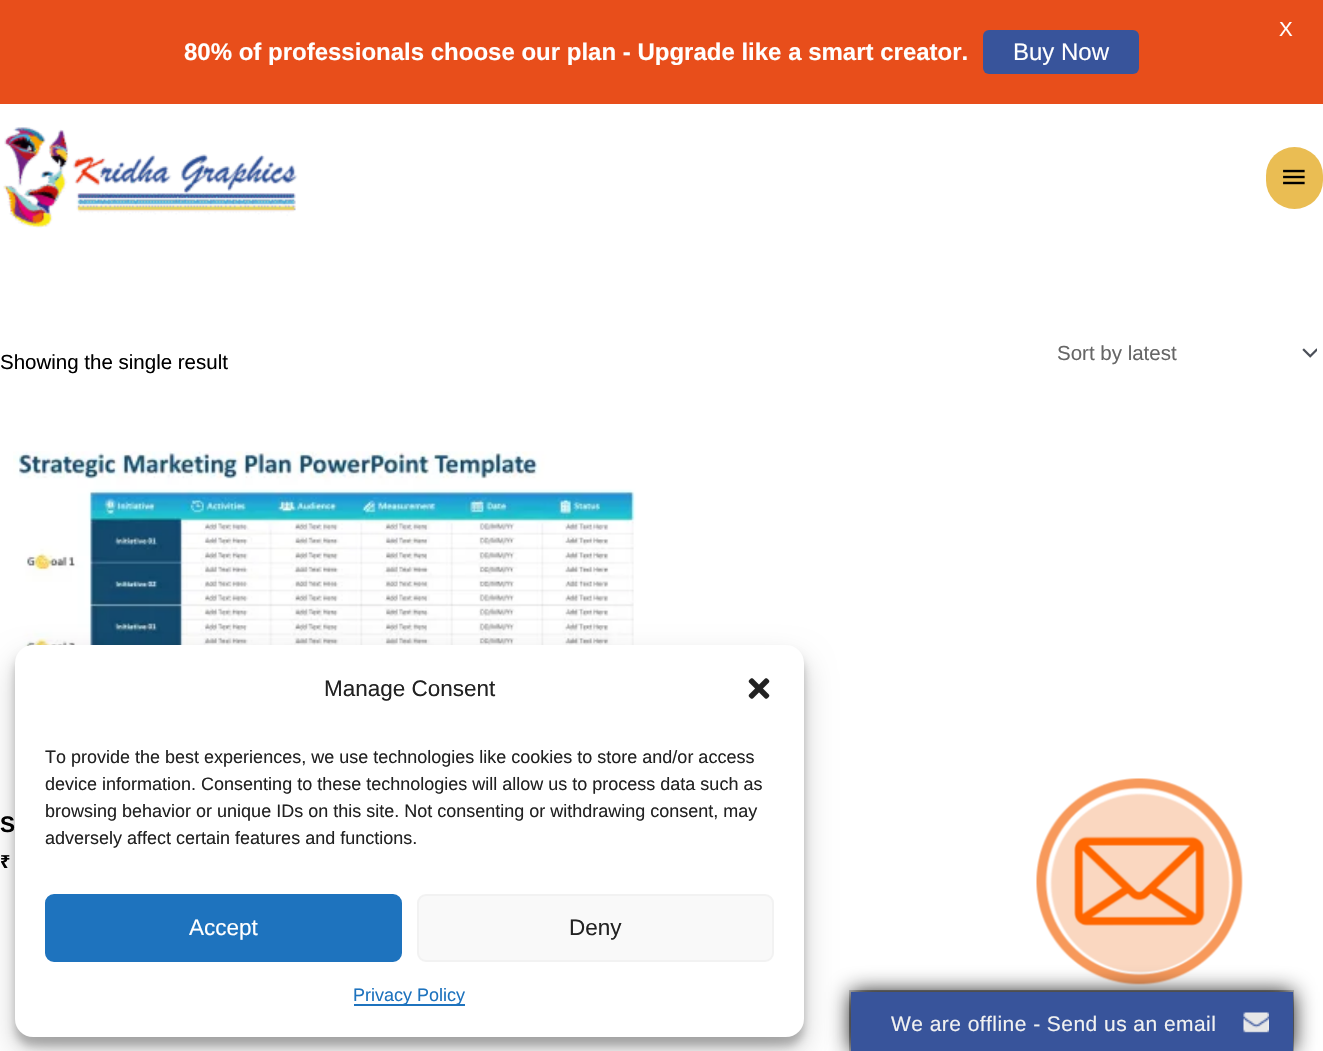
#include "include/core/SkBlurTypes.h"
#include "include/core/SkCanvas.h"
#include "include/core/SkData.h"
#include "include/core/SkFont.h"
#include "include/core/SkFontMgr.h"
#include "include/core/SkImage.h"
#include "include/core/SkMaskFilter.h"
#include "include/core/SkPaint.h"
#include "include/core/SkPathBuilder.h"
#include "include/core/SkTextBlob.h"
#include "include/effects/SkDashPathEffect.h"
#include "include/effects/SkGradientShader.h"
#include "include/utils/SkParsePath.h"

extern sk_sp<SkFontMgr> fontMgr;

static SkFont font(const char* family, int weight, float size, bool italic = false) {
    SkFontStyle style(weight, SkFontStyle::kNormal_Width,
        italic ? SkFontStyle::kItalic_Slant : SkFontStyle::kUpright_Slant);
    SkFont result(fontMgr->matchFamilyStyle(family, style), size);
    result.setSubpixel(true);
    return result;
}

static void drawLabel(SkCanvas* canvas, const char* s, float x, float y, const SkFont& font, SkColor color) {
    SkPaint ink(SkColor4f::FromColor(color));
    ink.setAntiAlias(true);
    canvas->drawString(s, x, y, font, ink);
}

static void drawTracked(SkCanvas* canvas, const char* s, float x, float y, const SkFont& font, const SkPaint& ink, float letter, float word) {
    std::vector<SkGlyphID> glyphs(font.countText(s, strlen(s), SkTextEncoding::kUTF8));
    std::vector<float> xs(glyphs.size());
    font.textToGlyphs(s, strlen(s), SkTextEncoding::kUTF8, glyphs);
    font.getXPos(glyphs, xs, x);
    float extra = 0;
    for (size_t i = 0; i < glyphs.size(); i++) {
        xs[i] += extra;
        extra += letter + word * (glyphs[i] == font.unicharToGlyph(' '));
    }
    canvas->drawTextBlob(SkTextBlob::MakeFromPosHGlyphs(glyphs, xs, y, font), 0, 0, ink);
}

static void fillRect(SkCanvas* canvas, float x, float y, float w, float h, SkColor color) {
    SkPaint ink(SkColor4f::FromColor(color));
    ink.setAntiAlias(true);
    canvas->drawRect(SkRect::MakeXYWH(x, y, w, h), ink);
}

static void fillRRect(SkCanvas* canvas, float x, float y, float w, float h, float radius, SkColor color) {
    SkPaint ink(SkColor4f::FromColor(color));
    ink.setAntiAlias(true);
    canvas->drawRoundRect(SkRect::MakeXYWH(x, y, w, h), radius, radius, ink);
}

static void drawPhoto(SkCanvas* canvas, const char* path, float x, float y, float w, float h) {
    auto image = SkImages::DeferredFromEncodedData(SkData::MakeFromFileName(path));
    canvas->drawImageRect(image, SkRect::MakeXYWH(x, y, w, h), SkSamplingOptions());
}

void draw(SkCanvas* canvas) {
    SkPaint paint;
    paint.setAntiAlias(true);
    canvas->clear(0xFFFFFFFF);
    fillRect(canvas, 0, 0, 1323, 104, 0xFFE84E1B);
    SkFont font1 = font("Liberation Sans", 400, 20.5f);
    drawLabel(canvas, "X", 1279, 36, font1, 0xFFFFFFFF);
    SkFont font2 = font("Liberation Sans", 700, 24);
    drawLabel(canvas, "80% of professionals choose our plan - Upgrade like a smart creator.", 184, 60, font2, 0xFFFFFFFF);
    fillRRect(canvas, 983, 30, 156, 44, 6, 0xFF38549B);
    SkFont font3 = font("Liberation Sans", 400, 24);
    drawLabel(canvas, "Buy Now", 1013, 60, font3, 0xFFFFFFFF);
    drawPhoto(canvas, "assets/img1.png", 3, 127, 295, 101);
    fillRRect(canvas, 1266, 147, 57, 62, 28.5f, 0xFFEABD53);
    drawPhoto(canvas, "assets/img2.png", 1283, 169, 22, 16);
    drawLabel(canvas, "Showing the single result", 0, 369, font1, 0xFF000000);
    drawPhoto(canvas, "assets/img3.png", 1302, 348, 15, 10);
    drawLabel(canvas, "Sort by latest", 1057, 360, font1, 0xFF666666);
    drawPhoto(canvas, "assets/img4.png", 13, 451, 623, 331);
    SkFont font4 = font("Liberation Sans", 700, 22.5f);
    drawLabel(canvas, "S", 0, 832, font4, 0xFF000000);
    SkFont font5 = font("Noto Sans", 700, 18);
    drawLabel(canvas, "₹", 0, 868, font5, 0xFF000000);
    paint.setColor(0x3B000000);
    paint.setMaskFilter(SkMaskFilter::MakeBlur(kNormal_SkBlurStyle, 4.5f));
    canvas->drawRoundRect(SkRect::MakeXYWH(15, 654, 789, 392), 18, 18, paint);
    paint.setMaskFilter(nullptr);
    paint.setColor(0x30000000);
    paint.setMaskFilter(SkMaskFilter::MakeBlur(kNormal_SkBlurStyle, 15));
    canvas->drawRoundRect(SkRect::MakeXYWH(15, 660, 789, 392), 18, 18, paint);
    paint.setMaskFilter(nullptr);
    fillRRect(canvas, 15, 645, 789, 392, 18, 0xFFFFFFFF);
    SkFont font6 = font("Liberation Sans", 400, 22.5f);
    drawLabel(canvas, "Manage Consent", 324, 696, font6, 0xFF222222);
    drawPhoto(canvas, "assets/img5.png", 748, 678, 22, 21);
    SkFont font7 = font("Liberation Sans", 400, 18);
    drawLabel(canvas, "To provide the best experiences, we use technologies like cookies to store and/or access", 45, 763, font7, 0xFF222222);
    drawLabel(canvas, "device information. Consenting to these technologies will allow us to process data such as", 45, 790, font7, 0xFF222222);
    drawLabel(canvas, "browsing behavior or unique IDs on this site. Not consenting or withdrawing consent, may", 45, 817, font7, 0xFF222222);
    drawLabel(canvas, "adversely affect certain features and functions.", 45, 844, font7, 0xFF222222);
    paint.setColor(0xFF1E73BE);
    canvas->drawRoundRect(SkRect::MakeXYWH(46, 895, 355, 66), 8, 8, paint);
    paint.setStroke(true);
    paint.setStrokeWidth(2);
    canvas->drawRoundRect(SkRect::MakeXYWH(46, 895, 355, 66), 8, 8, paint);
    drawLabel(canvas, "Accept", 189, 935, font6, 0xFFFFFFFF);
    paint.setStroke(false);
    paint.setColor(0xFFF9F9F9);
    canvas->drawRoundRect(SkRect::MakeXYWH(418, 895, 355, 66), 8, 8, paint);
    paint.setStroke(true);
    paint.setColor(0xFFF2F2F2);
    canvas->drawRoundRect(SkRect::MakeXYWH(418, 895, 355, 66), 8, 8, paint);
    drawLabel(canvas, "Deny", 569, 935, font6, 0xFF222222);
    fillRect(canvas, 354, 1004, 111, 2, 0xFF1E73BE);
    drawLabel(canvas, "Privacy Policy", 353, 1001, font7, 0xFF1E73BE);
    drawPhoto(canvas, "assets/img6.png", 1036, 778, 207, 207);
    paint.setStroke(false);
    paint.setColor(0xFF111111);
    paint.setMaskFilter(SkMaskFilter::MakeBlur(kNormal_SkBlurStyle, 11));
    canvas->drawRect(SkRect::MakeXYWH(851, 992, 442, 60), paint);
    paint.setMaskFilter(nullptr);
    drawPhoto(canvas, "assets/img7.png", 849, 990, 445, 61);
    fillRect(canvas, 851, 992, 442, 59, 0xFF38549B);
    SkFont font8 = font("Liberation Sans", 400, 21);
    paint.setColor(0xFFF1F1F1);
    drawTracked(canvas, "We are offline - Send us an email", 891, 1031, font8, paint, 0.45f, 0);
    drawPhoto(canvas, "assets/img8.png", 1243, 1012, 26, 21);
}
